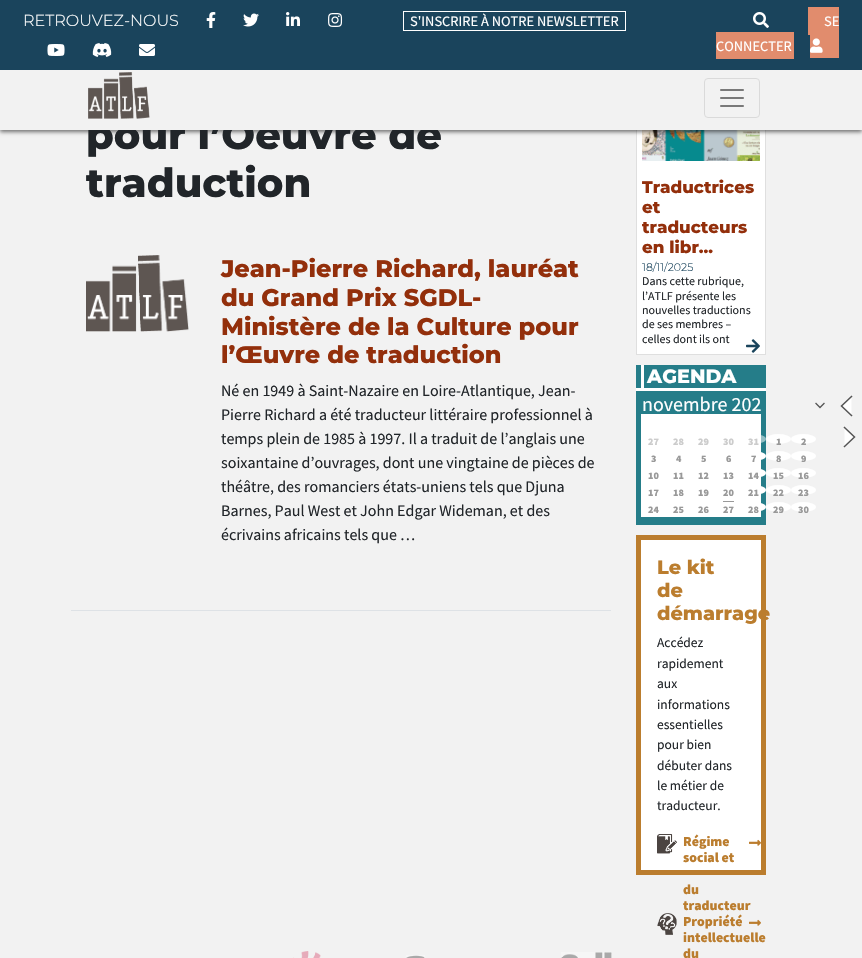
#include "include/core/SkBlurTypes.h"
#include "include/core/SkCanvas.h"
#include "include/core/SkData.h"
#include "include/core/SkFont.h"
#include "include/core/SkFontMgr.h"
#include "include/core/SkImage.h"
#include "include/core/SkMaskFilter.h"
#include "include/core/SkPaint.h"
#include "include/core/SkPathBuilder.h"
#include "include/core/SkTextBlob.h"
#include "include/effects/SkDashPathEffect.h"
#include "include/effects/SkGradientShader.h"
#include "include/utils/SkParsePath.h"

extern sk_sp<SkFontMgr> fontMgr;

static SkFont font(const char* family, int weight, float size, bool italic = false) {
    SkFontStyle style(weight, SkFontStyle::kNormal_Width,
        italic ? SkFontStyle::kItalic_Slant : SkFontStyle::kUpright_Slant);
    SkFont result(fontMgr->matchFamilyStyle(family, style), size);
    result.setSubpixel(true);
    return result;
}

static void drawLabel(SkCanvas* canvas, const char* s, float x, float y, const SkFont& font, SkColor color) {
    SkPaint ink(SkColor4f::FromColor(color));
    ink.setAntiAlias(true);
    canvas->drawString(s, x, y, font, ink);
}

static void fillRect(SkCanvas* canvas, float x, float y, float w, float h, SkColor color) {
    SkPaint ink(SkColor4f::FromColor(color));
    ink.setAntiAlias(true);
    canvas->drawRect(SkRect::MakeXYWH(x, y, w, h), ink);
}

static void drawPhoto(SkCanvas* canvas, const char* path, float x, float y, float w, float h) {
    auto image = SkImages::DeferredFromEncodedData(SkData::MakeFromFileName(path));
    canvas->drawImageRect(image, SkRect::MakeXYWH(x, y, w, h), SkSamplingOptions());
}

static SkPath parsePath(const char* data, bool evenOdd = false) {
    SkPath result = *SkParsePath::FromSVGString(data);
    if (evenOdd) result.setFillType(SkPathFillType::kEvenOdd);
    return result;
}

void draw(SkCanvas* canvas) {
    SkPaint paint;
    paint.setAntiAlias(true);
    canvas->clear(0xFFF2F2F2);
    fillRect(canvas, 637, 130, 128, 224, 0xFFFFFFFF);
    paint.setStroke(true);
    paint.setStrokeWidth(1);
    paint.setColor(0xFFDFDFDF);
    canvas->drawRect(SkRect::MakeXYWH(636.5f, 25.5f, 129, 329), paint);
    drawPhoto(canvas, "assets/img13.png", 642, 130, 118, 31);
    paint.setStroke(false);
    paint.setColor(0x87000000);
    paint.setMaskFilter(SkMaskFilter::MakeBlur(kNormal_SkBlurStyle, 2));
    canvas->drawRect(SkRect::MakeXYWH(0, 2, 862, 130), paint);
    paint.setMaskFilter(nullptr);
    SkFont font1 = font("Montserrat", 800, 40);
    drawLabel(canvas, "pour l’Oeuvre de", 86, 149, font1, 0xFF212529);
    fillRect(canvas, 0, 70, 862, 60, 0xFFF2F2F2);
    fillRect(canvas, 0, 0, 862, 70, 0xFF1A445C);
    SkFont font2 = font("Montserrat", 300, 16);
    drawLabel(canvas, "RETROUVEZ-NOUS", 23, 26, font2, 0xFFFFFFFF);
    drawPhoto(canvas, "assets/img1.png", 206, 12, 10, 16);
    drawPhoto(canvas, "assets/img2.png", 243, 13, 16, 14);
    drawPhoto(canvas, "assets/img3.png", 286, 12, 14, 14);
    drawPhoto(canvas, "assets/img4.png", 328, 13, 15, 14);
    drawPhoto(canvas, "assets/img5.png", 47, 44, 18, 12);
    drawPhoto(canvas, "assets/img6.png", 92, 43, 20, 14);
    drawPhoto(canvas, "assets/img7.png", 139, 44, 16, 12);
    paint.setStroke(true);
    paint.setColor(0xFFFFFFFF);
    canvas->drawRect(SkRect::MakeXYWH(403.5f, 11.5f, 222, 19), paint);
    SkFont font3 = font("Source Sans Pro", 400, 14.4f);
    drawLabel(canvas, "S'INSCRIRE À NOTRE NEWSLETTER", 410, 26, font3, 0xFFFFFFFF);
    drawPhoto(canvas, "assets/img8.png", 753, 12, 16, 16);
    fillRect(canvas, 808, 7, 31, 28, 0xFFE18C6D);
    fillRect(canvas, 716, 32, 78, 27, 0xFFE18C6D);
    fillRect(canvas, 810, 35, 29, 23, 0xFFE18C6D);
    drawLabel(canvas, "SE", 824, 26, font3, 0xFFFFFFFF);
    drawLabel(canvas, "CONNECTER", 716, 51, font3, 0xFFFFFFFF);
    drawPhoto(canvas, "assets/img9.png", 810, 38, 13, 15);
    drawPhoto(canvas, "assets/img10.png", 88, 72, 62, 47);
    paint.setColor(0xFFDADADA);
    canvas->drawRoundRect(SkRect::MakeXYWH(704.5f, 78.5f, 55, 39), 3.5f, 3.5f, paint);
    drawPhoto(canvas, "assets/img11.png", 720, 89, 24, 18);
    drawLabel(canvas, "traduction", 86, 197, font1, 0xFF212529);
    fillRect(canvas, 71, 610, 540, 1, 0xFFDEE2E6);
    drawPhoto(canvas, "assets/img12.png", 86, 255, 103, 77);
    SkFont font4 = font("Montserrat", 800, 24);
    drawLabel(canvas, "Jean-Pierre Richard, lauréat", 221, 277, font4, 0xFF932F0B);
    drawLabel(canvas, "du Grand Prix SGDL-", 221, 306, font4, 0xFF932F0B);
    drawLabel(canvas, "Ministère de la Culture pour", 221, 335, font4, 0xFF932F0B);
    drawLabel(canvas, "l’Œuvre de traduction", 221, 363, font4, 0xFF932F0B);
    SkFont font5 = font("Source Sans Pro", 400, 16);
    drawLabel(canvas, "Né en 1949 à Saint-Nazaire en Loire-Atlantique, Jean-", 221, 396, font5, 0xFF212529);
    drawLabel(canvas, "Pierre Richard a été traducteur littéraire professionnel à", 221, 420, font5, 0xFF212529);
    drawLabel(canvas, "temps plein de 1985 à 1997. Il a traduit de l’anglais une", 221, 444, font5, 0xFF212529);
    drawLabel(canvas, "soixantaine d’ouvrages, dont une vingtaine de pièces de", 221, 468, font5, 0xFF212529);
    drawLabel(canvas, "théâtre, des romanciers états-uniens tels que Djuna", 221, 492, font5, 0xFF212529);
    drawLabel(canvas, "Barnes, Paul West et John Edgar Wideman, et des", 221, 516, font5, 0xFF212529);
    drawLabel(canvas, "écrivains africains tels que …", 221, 540, font5, 0xFF212529);
    SkFont font6 = font("Montserrat", 800, 16.75f);
    drawLabel(canvas, "Traductrices", 642, 193, font6, 0xFF932F0B);
    drawLabel(canvas, "et", 642, 213, font6, 0xFF932F0B);
    drawLabel(canvas, "traducteurs", 642, 233, font6, 0xFF932F0B);
    drawLabel(canvas, "en libr...", 642, 253, font6, 0xFF932F0B);
    SkFont font7 = font("Montserrat", 300, 11);
    drawLabel(canvas, "18/11/2025", 642, 271, font7, 0xFF1A445C);
    SkFont font8 = font("Source Sans Pro", 400, 12);
    drawLabel(canvas, "Dans cette rubrique,", 642, 285, font8, 0xFF212529);
    drawLabel(canvas, "l’ATLF présente les", 642, 300, font8, 0xFF212529);
    drawLabel(canvas, "nouvelles traductions", 642, 314, font8, 0xFF212529);
    drawLabel(canvas, "de ses membres –", 642, 328, font8, 0xFF212529);
    drawLabel(canvas, "celles dont ils ont", 642, 343, font8, 0xFF212529);
    drawPhoto(canvas, "assets/img14.png", 746, 339, 14, 14);
    fillRect(canvas, 636, 365, 130, 160, 0xFF257D89);
    fillRect(canvas, 636, 388, 130, 3, 0xFFFFFFFF);
    fillRect(canvas, 641, 365, 3, 24, 0xFFFFFFFF);
    SkFont font9 = font("Montserrat", 800, 19.25f);
    drawLabel(canvas, "AGENDA", 647, 383, font9, 0xFFFFFFFF);
    paint.setStrokeWidth(1.3f);
    paint.setStrokeCap(SkPaint::kSquare_Cap);
    paint.setColor(0xFF555555);
    canvas->drawPath(parsePath("M816 403.5L820 407.5L824 403.5"), paint);
    SkFont font10 = font("Source Sans Pro", 400, 20);
    drawLabel(canvas, "novembre 202", 642, 411, font10, 0xFFFFFFFF);
    paint.setStroke(false);
    paint.setColor(0xFFFFFFFF);
    canvas->drawPath(parsePath("M851.5 415.5L841.5 406L851.5 396.5"), paint);
    paint.setStroke(true);
    paint.setStrokeWidth(1.5f);
    paint.setColor(0xFF555555);
    canvas->drawPath(parsePath("M851.5 415.5L841.5 406L851.5 396.5"), paint);
    paint.setStroke(false);
    paint.setColor(0xFFFFFFFF);
    canvas->drawPath(parsePath("M844.5 446.5L854.5 437L844.5 427.5"), paint);
    paint.setStroke(true);
    paint.setColor(0xFF555555);
    canvas->drawPath(parsePath("M844.5 446.5L854.5 437L844.5 427.5"), paint);
    fillRect(canvas, 641, 414, 120, 103, 0xFFFFFFFF);
    SkFont font11 = font("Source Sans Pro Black", 900, 10);
    drawLabel(canvas, "27", 648, 445, font11, 0xFFCCCCCC);
    drawLabel(canvas, "28", 673, 445, font11, 0xFFCCCCCC);
    drawLabel(canvas, "29", 698, 445, font11, 0xFFCCCCCC);
    drawLabel(canvas, "30", 723, 445, font11, 0xFFCCCCCC);
    paint.setStroke(false);
    paint.setColor(0x80FFFFFF);
    canvas->drawOval(SkRect::MakeXYWH(741, 434, 25, 10), paint);
    drawLabel(canvas, "31", 748, 445, font11, 0xFFCCCCCC);
    paint.setColor(0xFFFFFFFF);
    canvas->drawOval(SkRect::MakeXYWH(766, 434, 25, 10), paint);
    drawLabel(canvas, "1", 776, 445, font11, 0xFF999999);
    canvas->drawOval(SkRect::MakeXYWH(791, 434, 25, 10), paint);
    drawLabel(canvas, "2", 801, 445, font11, 0xFF999999);
    drawLabel(canvas, "3", 651, 462, font11, 0xFF999999);
    drawLabel(canvas, "4", 676, 462, font11, 0xFF999999);
    drawLabel(canvas, "5", 701, 462, font11, 0xFF999999);
    drawLabel(canvas, "6", 726, 462, font11, 0xFF999999);
    canvas->drawOval(SkRect::MakeXYWH(741, 451, 25, 10), paint);
    drawLabel(canvas, "7", 751, 462, font11, 0xFF999999);
    canvas->drawOval(SkRect::MakeXYWH(766, 451, 25, 10), paint);
    drawLabel(canvas, "8", 776, 462, font11, 0xFF999999);
    canvas->drawOval(SkRect::MakeXYWH(791, 451, 25, 10), paint);
    drawLabel(canvas, "9", 801, 462, font11, 0xFF999999);
    drawLabel(canvas, "10", 648, 479, font11, 0xFF999999);
    drawLabel(canvas, "11", 673, 479, font11, 0xFF999999);
    drawLabel(canvas, "12", 698, 479, font11, 0xFF999999);
    drawLabel(canvas, "13", 723, 479, font11, 0xFF999999);
    canvas->drawOval(SkRect::MakeXYWH(741, 468, 25, 10), paint);
    drawLabel(canvas, "14", 748, 479, font11, 0xFF999999);
    canvas->drawOval(SkRect::MakeXYWH(766, 468, 25, 10), paint);
    drawLabel(canvas, "15", 773, 479, font11, 0xFF999999);
    canvas->drawOval(SkRect::MakeXYWH(791, 468, 25, 10), paint);
    drawLabel(canvas, "16", 798, 479, font11, 0xFF999999);
    drawLabel(canvas, "17", 648, 496, font11, 0xFF999999);
    drawLabel(canvas, "18", 673, 496, font11, 0xFF999999);
    drawLabel(canvas, "19", 698, 496, font11, 0xFF999999);
    drawLabel(canvas, "20", 723, 496, font11, 0xFF999999);
    fillRect(canvas, 723, 501, 11, 1, 0xFF999999);
    canvas->drawOval(SkRect::MakeXYWH(741, 485, 25, 10), paint);
    drawLabel(canvas, "21", 748, 496, font11, 0xFF999999);
    canvas->drawOval(SkRect::MakeXYWH(766, 485, 25, 10), paint);
    drawLabel(canvas, "22", 773, 496, font11, 0xFF999999);
    canvas->drawOval(SkRect::MakeXYWH(791, 485, 25, 10), paint);
    drawLabel(canvas, "23", 798, 496, font11, 0xFF999999);
    drawLabel(canvas, "24", 648, 513, font11, 0xFF999999);
    drawLabel(canvas, "25", 673, 513, font11, 0xFF999999);
    drawLabel(canvas, "26", 698, 513, font11, 0xFF999999);
    drawLabel(canvas, "27", 723, 513, font11, 0xFF999999);
    canvas->drawOval(SkRect::MakeXYWH(741, 502, 25, 10), paint);
    drawLabel(canvas, "28", 748, 513, font11, 0xFF999999);
    canvas->drawOval(SkRect::MakeXYWH(766, 502, 25, 10), paint);
    drawLabel(canvas, "29", 773, 513, font11, 0xFF999999);
    canvas->drawOval(SkRect::MakeXYWH(791, 502, 25, 10), paint);
    drawLabel(canvas, "30", 798, 513, font11, 0xFF999999);
    fillRect(canvas, 636, 535, 130, 340, 0xFFBB7D2E);
    fillRect(canvas, 641, 540, 120, 330, 0xFFFFFFFF);
    drawLabel(canvas, "Le kit", 657, 574, font9, 0xFFBB7D2E);
    drawLabel(canvas, "de", 657, 597, font9, 0xFFBB7D2E);
    drawLabel(canvas, "démarrage", 657, 620, font9, 0xFFBB7D2E);
    SkFont font12 = font("Source Sans Pro", 400, 13.5f);
    drawLabel(canvas, "Accédez", 657, 647, font12, 0xFF212529);
    drawLabel(canvas, "rapidement", 657, 668, font12, 0xFF212529);
    drawLabel(canvas, "aux", 657, 688, font12, 0xFF212529);
    drawLabel(canvas, "informations", 657, 709, font12, 0xFF212529);
    drawLabel(canvas, "essentielles", 657, 729, font12, 0xFF212529);
    drawLabel(canvas, "pour bien", 657, 749, font12, 0xFF212529);
    drawLabel(canvas, "débuter dans", 657, 770, font12, 0xFF212529);
    drawLabel(canvas, "le métier de", 657, 790, font12, 0xFF212529);
    drawLabel(canvas, "traducteur.", 657, 810, font12, 0xFF212529);
    drawPhoto(canvas, "assets/img15.png", 657, 834, 20, 20);
    SkFont font13 = font("Source Sans Pro Black", 900, 13.75f);
    drawLabel(canvas, "Régime", 683, 846, font13, 0xFFBB7D2E);
    drawPhoto(canvas, "assets/img16.png", 749, 839, 12, 7);
    drawLabel(canvas, "social et", 683, 862, font13, 0xFFBB7D2E);
    drawLabel(canvas, "du", 683, 894, font13, 0xFFBB7D2E);
    drawLabel(canvas, "traducteur", 683, 910, font13, 0xFFBB7D2E);
    drawPhoto(canvas, "assets/img17.png", 657, 913, 20, 22);
    drawLabel(canvas, "Propriété", 683, 926, font13, 0xFFBB7D2E);
    drawPhoto(canvas, "assets/img18.png", 749, 919, 12, 7);
    drawLabel(canvas, "intellectuelle", 683, 942, font13, 0xFFBB7D2E);
    drawLabel(canvas, "du", 683, 958, font13, 0xFFBB7D2E);
    drawPhoto(canvas, "assets/img19.png", 293, 951, 28, 7);
    drawPhoto(canvas, "assets/img20.png", 406, 955, 19, 3);
    drawPhoto(canvas, "assets/img21.png", 561, 952, 51, 6);
}
